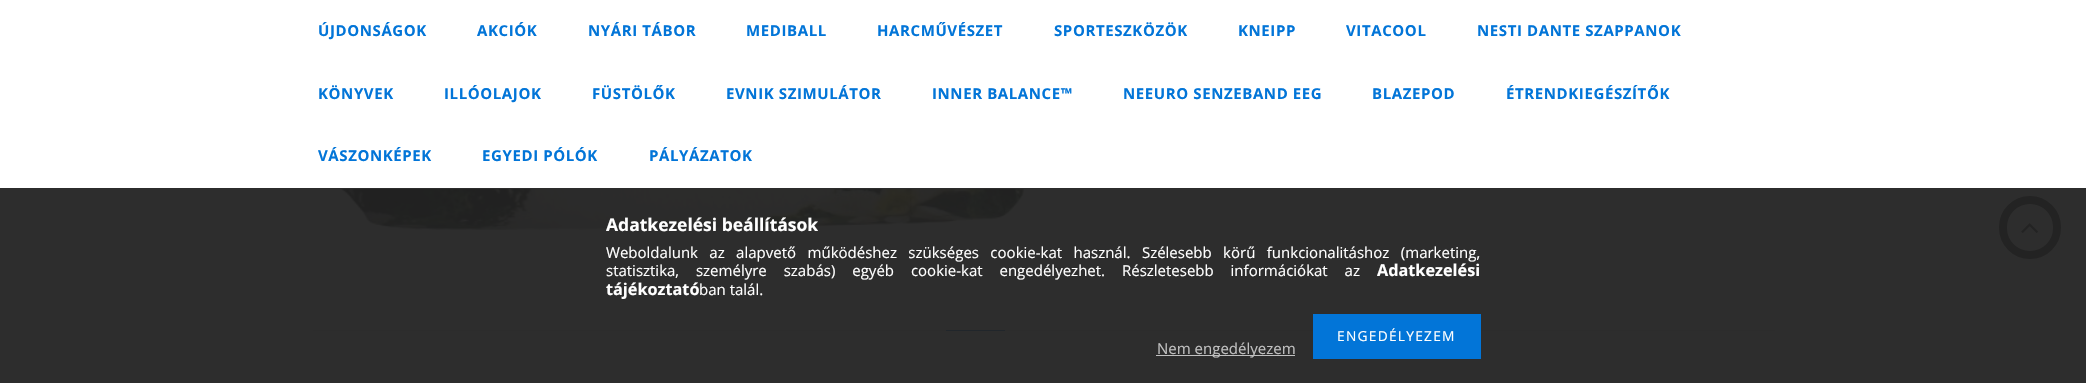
#include "include/core/SkBlurTypes.h"
#include "include/core/SkCanvas.h"
#include "include/core/SkData.h"
#include "include/core/SkFont.h"
#include "include/core/SkFontMgr.h"
#include "include/core/SkImage.h"
#include "include/core/SkMaskFilter.h"
#include "include/core/SkPaint.h"
#include "include/core/SkPathBuilder.h"
#include "include/core/SkTextBlob.h"
#include "include/effects/SkDashPathEffect.h"
#include "include/effects/SkGradientShader.h"
#include "include/utils/SkParsePath.h"

extern sk_sp<SkFontMgr> fontMgr;

static SkFont font(const char* family, int weight, float size, bool italic = false) {
    SkFontStyle style(weight, SkFontStyle::kNormal_Width,
        italic ? SkFontStyle::kItalic_Slant : SkFontStyle::kUpright_Slant);
    SkFont result(fontMgr->matchFamilyStyle(family, style), size);
    result.setSubpixel(true);
    return result;
}

static void drawLabel(SkCanvas* canvas, const char* s, float x, float y, const SkFont& font, SkColor color) {
    SkPaint ink(SkColor4f::FromColor(color));
    ink.setAntiAlias(true);
    canvas->drawString(s, x, y, font, ink);
}

static void drawTracked(SkCanvas* canvas, const char* s, float x, float y, const SkFont& font, const SkPaint& ink, float letter, float word) {
    std::vector<SkGlyphID> glyphs(font.countText(s, strlen(s), SkTextEncoding::kUTF8));
    std::vector<float> xs(glyphs.size());
    font.textToGlyphs(s, strlen(s), SkTextEncoding::kUTF8, glyphs);
    font.getXPos(glyphs, xs, x);
    float extra = 0;
    for (size_t i = 0; i < glyphs.size(); i++) {
        xs[i] += extra;
        extra += letter + word * (glyphs[i] == font.unicharToGlyph(' '));
    }
    canvas->drawTextBlob(SkTextBlob::MakeFromPosHGlyphs(glyphs, xs, y, font), 0, 0, ink);
}

static void fillRect(SkCanvas* canvas, float x, float y, float w, float h, SkColor color) {
    SkPaint ink(SkColor4f::FromColor(color));
    ink.setAntiAlias(true);
    canvas->drawRect(SkRect::MakeXYWH(x, y, w, h), ink);
}

static void drawPhoto(SkCanvas* canvas, const char* path, float x, float y, float w, float h) {
    auto image = SkImages::DeferredFromEncodedData(SkData::MakeFromFileName(path));
    canvas->drawImageRect(image, SkRect::MakeXYWH(x, y, w, h), SkSamplingOptions());
}

void draw(SkCanvas* canvas) {
    SkPaint paint;
    paint.setAntiAlias(true);
    canvas->clear(0xFFFFFFFF);
    fillRect(canvas, 0, 188, 2086, 1, 0xFFDDDDDD);
    SkFont font1 = font("Open Sans", 700, 15);
    paint.setColor(0xFF0275D8);
    drawTracked(canvas, "ÚJDONSÁGOK", 318, 36, font1, paint, 0.6f, 0);
    drawTracked(canvas, "AKCIÓK", 477, 36, font1, paint, 0.6f, 0);
    drawTracked(canvas, "NYÁRI TÁBOR", 588, 36, font1, paint, 0.6f, 0);
    drawTracked(canvas, "MEDIBALL", 746, 36, font1, paint, 0.6f, 0);
    drawTracked(canvas, "HARCMŰVÉSZET", 877, 36, font1, paint, 0.6f, 0);
    drawTracked(canvas, "SPORTESZKÖZÖK", 1054, 36, font1, paint, 0.6f, 0);
    drawTracked(canvas, "KNEIPP", 1238, 36, font1, paint, 0.6f, 0);
    drawTracked(canvas, "VITACOOL", 1346, 36, font1, paint, 0.6f, 0);
    drawTracked(canvas, "NESTI DANTE SZAPPANOK", 1477, 36, font1, paint, 0.6f, 0);
    drawTracked(canvas, "KÖNYVEK", 318, 99, font1, paint, 0.6f, 0);
    drawTracked(canvas, "ILLÓOLAJOK", 444, 99, font1, paint, 0.6f, 0);
    drawTracked(canvas, "FÜSTÖLŐK", 592, 99, font1, paint, 0.6f, 0);
    drawTracked(canvas, "EVNIK SZIMULÁTOR", 726, 99, font1, paint, 0.6f, 0);
    drawTracked(canvas, "INNER BALANCE™", 932, 99, font1, paint, 0.6f, 0);
    drawTracked(canvas, "NEEURO SENZEBAND EEG", 1123, 99, font1, paint, 0.6f, 0);
    drawTracked(canvas, "BLAZEPOD", 1372, 99, font1, paint, 0.6f, 0);
    drawTracked(canvas, "ÉTRENDKIEGÉSZÍTŐK", 1506, 99, font1, paint, 0.6f, 0);
    drawTracked(canvas, "VÁSZONKÉPEK", 318, 161, font1, paint, 0.6f, 0);
    drawTracked(canvas, "EGYEDI PÓLÓK", 482, 161, font1, paint, 0.6f, 0);
    drawTracked(canvas, "PÁLYÁZATOK", 649, 161, font1, paint, 0.6f, 0);
    drawPhoto(canvas, "assets/img1.png", 323, 189, 710, 49);
    fillRect(canvas, 313, 330, 1462, 1, 0xFFDDDDDD);
    fillRect(canvas, 946, 330, 59, 1, 0xFF0275D8);
    fillRect(canvas, 313, 356, 1462, 27, 0xFFF7F7F7);
    paint.setStroke(true);
    paint.setStrokeWidth(8);
    paint.setColor(0xFF333333);
    canvas->drawRoundRect(SkRect::MakeXYWH(2003, 200, 54, 55), 27, 27, paint);
    drawPhoto(canvas, "assets/img2.png", 2021, 223, 17, 10);
    fillRect(canvas, 0, 188, 2086, 195, 0xF2222222);
    SkFont font2 = font("Open Sans", 700, 17.5f);
    drawLabel(canvas, "Adatkezelési beállítások", 606, 231, font2, 0xFFFFFFFF);
    SkFont font3 = font("Open Sans", 400, 15);
    paint.setStroke(false);
    paint.setColor(0xFFFFFFFF);
    drawTracked(canvas, "Weboldalunk az alapvető működéshez szükséges cookie-kat használ. Szélesebb körű funkcionalitáshoz (marketing,", 606, 258, font3, paint, 0, 7.5f);
    drawTracked(canvas, "statisztika, személyre szabás) egyéb cookie-kat engedélyezhet. Részletesebb információkat az", 606, 276, font3, paint, 0, 13);
    SkFont font4 = font("Open Sans", 700, 16.25f);
    drawLabel(canvas, "Adatkezelési", 1377, 276, font4, 0xFFFFFFFF);
    drawLabel(canvas, "tájékoztató", 606, 295, font4, 0xFFFFFFFF);
    drawLabel(canvas, "ban talál.", 699, 295, font3, 0xFFFFFFFF);
    fillRect(canvas, 1313, 314, 168, 45, 0xFF0275D8);
    SkFont font5 = font("Open Sans", 400, 13.75f);
    drawTracked(canvas, "ENGEDÉLYEZEM", 1337, 341, font5, paint, 1.25f, 0);
    fillRect(canvas, 1156, 355, 139, 1, 0xFFC0C0C0);
    drawLabel(canvas, "Nem engedélyezem", 1157, 354, font3, 0xFFC0C0C0);
}
